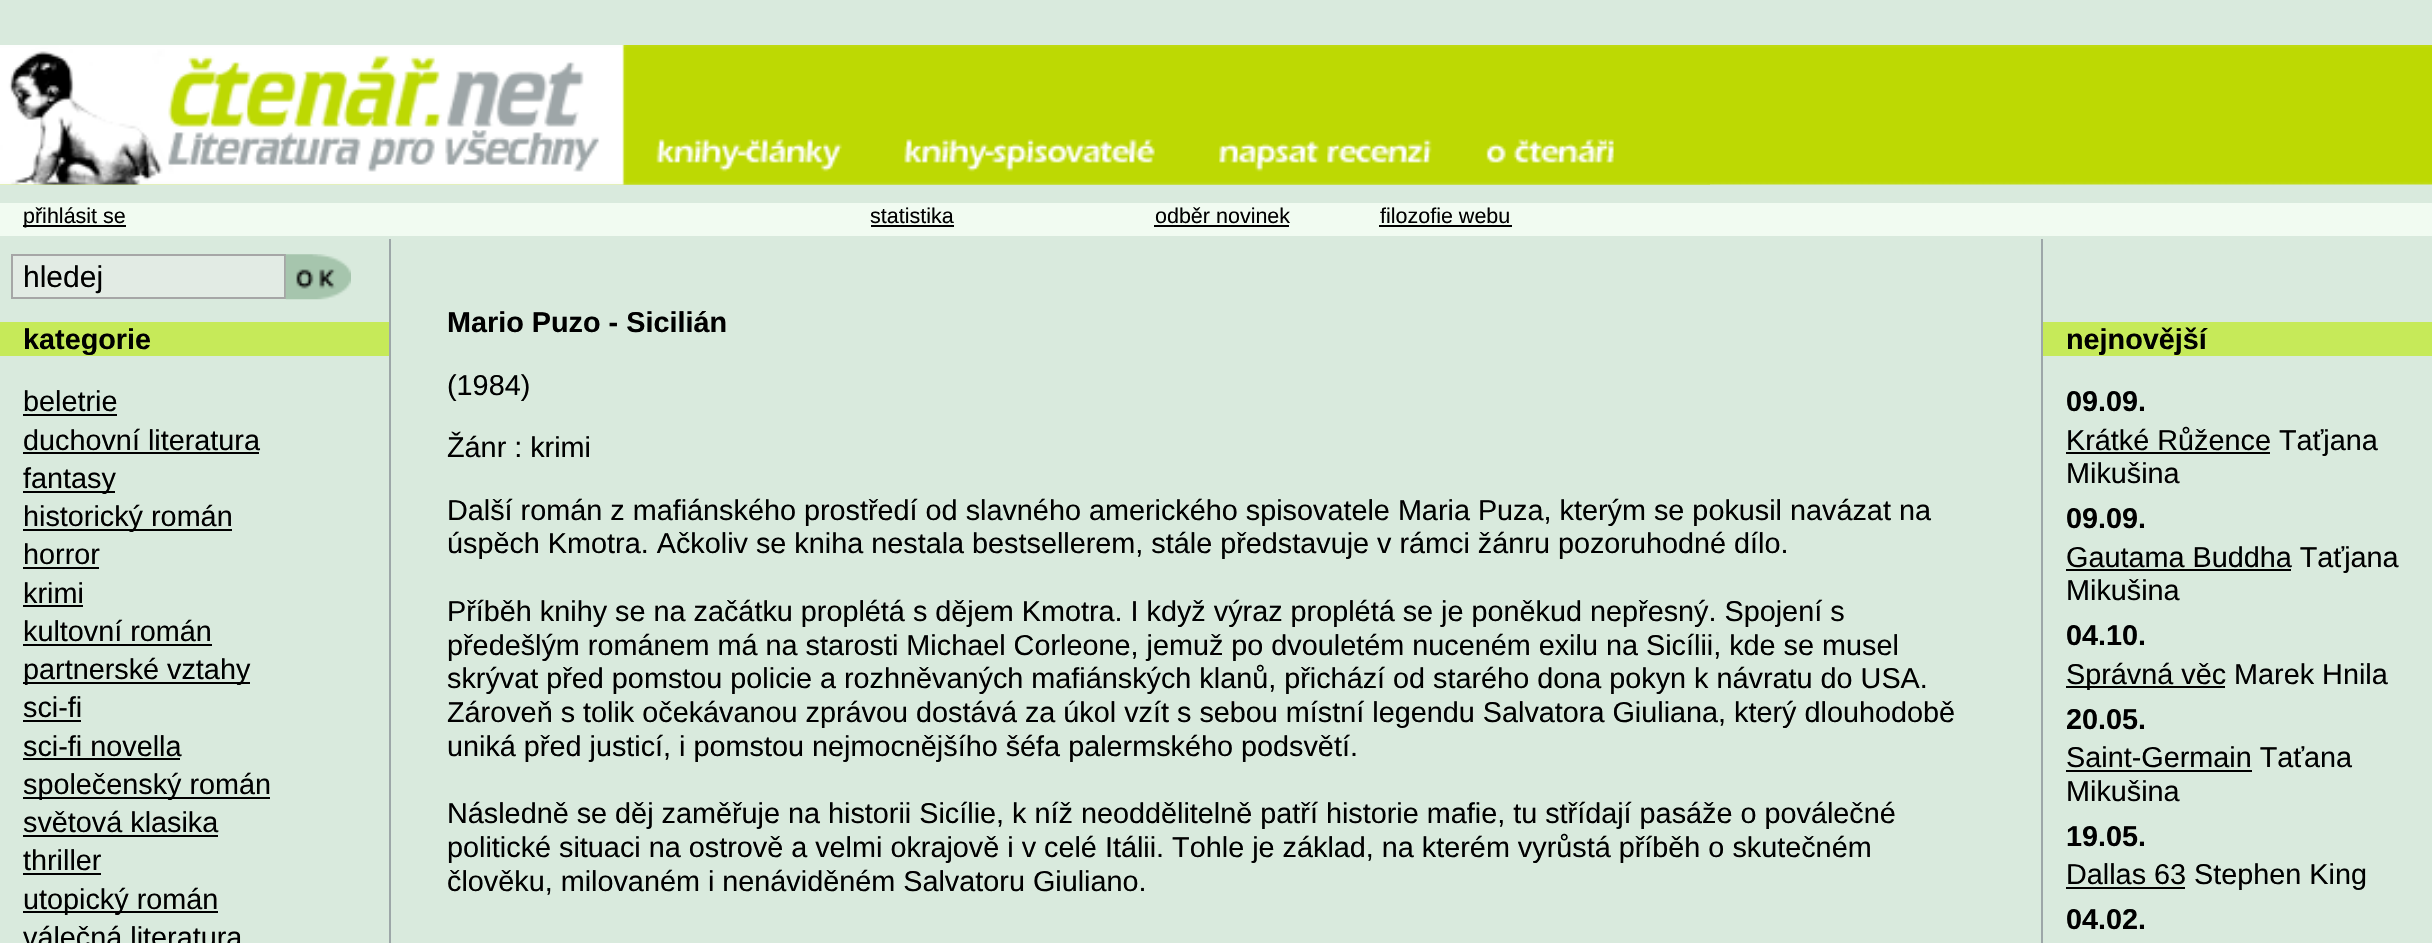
#include "include/core/SkBlurTypes.h"
#include "include/core/SkCanvas.h"
#include "include/core/SkData.h"
#include "include/core/SkFont.h"
#include "include/core/SkFontMgr.h"
#include "include/core/SkImage.h"
#include "include/core/SkMaskFilter.h"
#include "include/core/SkPaint.h"
#include "include/core/SkPathBuilder.h"
#include "include/core/SkTextBlob.h"
#include "include/effects/SkDashPathEffect.h"
#include "include/effects/SkGradientShader.h"
#include "include/utils/SkParsePath.h"

extern sk_sp<SkFontMgr> fontMgr;

static SkFont font(const char* family, int weight, float size, bool italic = false) {
    SkFontStyle style(weight, SkFontStyle::kNormal_Width,
        italic ? SkFontStyle::kItalic_Slant : SkFontStyle::kUpright_Slant);
    SkFont result(fontMgr->matchFamilyStyle(family, style), size);
    result.setSubpixel(true);
    return result;
}

static void drawLabel(SkCanvas* canvas, const char* s, float x, float y, const SkFont& font, SkColor color) {
    SkPaint ink(SkColor4f::FromColor(color));
    ink.setAntiAlias(true);
    canvas->drawString(s, x, y, font, ink);
}

static void fillRect(SkCanvas* canvas, float x, float y, float w, float h, SkColor color) {
    SkPaint ink(SkColor4f::FromColor(color));
    ink.setAntiAlias(true);
    canvas->drawRect(SkRect::MakeXYWH(x, y, w, h), ink);
}

static void drawPhoto(SkCanvas* canvas, const char* path, float x, float y, float w, float h) {
    auto image = SkImages::DeferredFromEncodedData(SkData::MakeFromFileName(path));
    canvas->drawImageRect(image, SkRect::MakeXYWH(x, y, w, h), SkSamplingOptions());
}

void draw(SkCanvas* canvas) {
    SkPaint paint;
    paint.setAntiAlias(true);
    canvas->clear(0xFFD9EADD);
    drawPhoto(canvas, "assets/img1.png", 0, 45, 2432, 140);
    drawPhoto(canvas, "assets/img2.png", 0, 45, 1710, 140);
    fillRect(canvas, 0, 203, 2432, 33, 0xFFF1FBF1);
    fillRect(canvas, 23, 225, 103, 2, 0xFF000000);
    SkFont font1 = font("Liberation Sans", 400, 21.5f);
    drawLabel(canvas, "přihlásit se", 23, 223, font1, 0xFF000000);
    drawLabel(canvas, "statistika", 870, 223, font1, 0xFF000000);
    fillRect(canvas, 871, 225, 83, 2, 0xFF000000);
    drawLabel(canvas, "odběr novinek", 1155, 223, font1, 0xFF000000);
    fillRect(canvas, 1154, 225, 135, 2, 0xFF000000);
    drawLabel(canvas, "filozofie webu", 1380, 223, font1, 0xFF000000);
    fillRect(canvas, 1379, 225, 133, 2, 0xFF000000);
    fillRect(canvas, 389, 239, 2, 704, 0xFF9DA7A8);
    paint.setColor(0xFFE2EBE4);
    canvas->drawRect(SkRect::MakeXYWH(12, 255, 273, 43), paint);
    paint.setStroke(true);
    paint.setStrokeWidth(2);
    paint.setColor(0xFFA6A6A6);
    canvas->drawRect(SkRect::MakeXYWH(12, 255, 273, 43), paint);
    SkFont font2 = font("Liberation Sans", 400, 30);
    drawLabel(canvas, "hledej", 23, 287, font2, 0xFF000000);
    drawPhoto(canvas, "assets/img3.png", 285, 254, 66, 46);
    fillRect(canvas, 0, 322, 389, 34, 0xFFC6EA59);
    SkFont font3 = font("Liberation Sans", 700, 28.8f);
    drawLabel(canvas, "kategorie", 23, 349, font3, 0xFF000000);
    SkFont font4 = font("Liberation Sans", 400, 28.8f);
    drawLabel(canvas, "beletrie", 23, 411, font4, 0xFF000000);
    fillRect(canvas, 23, 414, 94, 2, 0xFF000000);
    drawLabel(canvas, "duchovní literatura", 23, 450, font4, 0xFF000000);
    fillRect(canvas, 23, 452, 236, 2, 0xFF000000);
    fillRect(canvas, 23, 491, 92, 2, 0xFF000000);
    drawLabel(canvas, "fantasy", 23, 488, font4, 0xFF000000);
    fillRect(canvas, 23, 529, 209, 2, 0xFF000000);
    drawLabel(canvas, "historický román", 23, 526, font4, 0xFF000000);
    drawLabel(canvas, "horror", 23, 564, font4, 0xFF000000);
    fillRect(canvas, 23, 567, 76, 2, 0xFF000000);
    drawLabel(canvas, "krimi", 23, 603, font4, 0xFF000000);
    fillRect(canvas, 23, 605, 60, 2, 0xFF000000);
    drawLabel(canvas, "kultovní román", 23, 641, font4, 0xFF000000);
    fillRect(canvas, 23, 644, 189, 2, 0xFF000000);
    fillRect(canvas, 23, 682, 227, 2, 0xFF000000);
    drawLabel(canvas, "partnerské vztahy", 23, 679, font4, 0xFF000000);
    drawLabel(canvas, "sci-fi", 23, 717, font4, 0xFF000000);
    fillRect(canvas, 23, 720, 58, 2, 0xFF000000);
    drawLabel(canvas, "sci-fi novella", 23, 756, font4, 0xFF000000);
    fillRect(canvas, 23, 758, 157, 2, 0xFF000000);
    fillRect(canvas, 23, 797, 247, 2, 0xFF000000);
    drawLabel(canvas, "společenský román", 23, 794, font4, 0xFF000000);
    drawLabel(canvas, "světová klasika", 23, 832, font4, 0xFF000000);
    fillRect(canvas, 23, 835, 195, 2, 0xFF000000);
    drawLabel(canvas, "thriller", 23, 870, font4, 0xFF000000);
    fillRect(canvas, 23, 873, 78, 2, 0xFF000000);
    fillRect(canvas, 23, 911, 195, 2, 0xFF000000);
    drawLabel(canvas, "utopický román", 23, 909, font4, 0xFF000000);
    drawLabel(canvas, "válečná literatura", 23, 947, font4, 0xFF000000);
    drawLabel(canvas, "Mario Puzo - Sicilián", 447, 332, font3, 0xFF000000);
    drawLabel(canvas, "(1984)", 447, 395, font4, 0xFF000000);
    drawLabel(canvas, "Žánr : krimi", 447, 457, font4, 0xFF000000);
    drawLabel(canvas, "Další román z mafiánského prostředí od slavného amerického spisovatele Maria Puza, kterým se pokusil navázat na", 447, 520, font4, 0xFF000000);
    drawLabel(canvas, "úspěch Kmotra. Ačkoliv se kniha nestala bestsellerem, stále představuje v rámci žánru pozoruhodné dílo.", 447, 553, font4, 0xFF000000);
    drawLabel(canvas, "Příběh knihy se na začátku proplétá s dějem Kmotra. I když výraz proplétá se je poněkud nepřesný. Spojení s", 447, 621, font4, 0xFF000000);
    drawLabel(canvas, "předešlým románem má na starosti Michael Corleone, jemuž po dvouletém nuceném exilu na Sicílii, kde se musel", 447, 655, font4, 0xFF000000);
    drawLabel(canvas, "skrývat před pomstou policie a rozhněvaných mafiánských klanů, přichází od starého dona pokyn k návratu do USA.", 447, 688, font4, 0xFF000000);
    drawLabel(canvas, "Zároveň s tolik očekávanou zprávou dostává za úkol vzít s sebou místní legendu Salvatora Giuliana, který dlouhodobě", 447, 722, font4, 0xFF000000);
    drawLabel(canvas, "uniká před justicí, i pomstou nejmocnějšího šéfa palermského podsvětí.", 447, 756, font4, 0xFF000000);
    drawLabel(canvas, "Následně se děj zaměřuje na historii Sicílie, k níž neoddělitelně patří historie mafie, tu střídají pasáže o poválečné", 447, 823, font4, 0xFF000000);
    drawLabel(canvas, "politické situaci na ostrově a velmi okrajově i v celé Itálii. Tohle je základ, na kterém vyrůstá příběh o skutečném", 447, 857, font4, 0xFF000000);
    drawLabel(canvas, "člověku, milovaném i nenáviděném Salvatoru Giuliano.", 447, 891, font4, 0xFF000000);
    fillRect(canvas, 2041, 239, 2, 704, 0xFF9DA7A8);
    fillRect(canvas, 2043, 322, 389, 34, 0xFFC6EA59);
    drawLabel(canvas, "nejnovější", 2066, 349, font3, 0xFF000000);
    drawLabel(canvas, "09.09.", 2066, 411, font3, 0xFF000000);
    fillRect(canvas, 2066, 452, 204, 2, 0xFF000000);
    drawLabel(canvas, "Krátké Růžence Taťjana", 2066, 450, font4, 0xFF000000);
    drawLabel(canvas, "Mikušina", 2066, 483, font4, 0xFF000000);
    drawLabel(canvas, "09.09.", 2066, 528, font3, 0xFF000000);
    fillRect(canvas, 2066, 569, 225, 2, 0xFF000000);
    drawLabel(canvas, "Gautama Buddha Taťjana", 2066, 567, font4, 0xFF000000);
    drawLabel(canvas, "Mikušina", 2066, 600, font4, 0xFF000000);
    drawLabel(canvas, "04.10.", 2066, 645, font3, 0xFF000000);
    fillRect(canvas, 2066, 686, 159, 2, 0xFF000000);
    drawLabel(canvas, "Správná věc Marek Hnila", 2066, 684, font4, 0xFF000000);
    drawLabel(canvas, "20.05.", 2066, 729, font3, 0xFF000000);
    drawLabel(canvas, "Saint-Germain Taťana", 2066, 767, font4, 0xFF000000);
    fillRect(canvas, 2066, 770, 186, 2, 0xFF000000);
    drawLabel(canvas, "Mikušina", 2066, 801, font4, 0xFF000000);
    drawLabel(canvas, "19.05.", 2066, 846, font3, 0xFF000000);
    fillRect(canvas, 2066, 887, 119, 2, 0xFF000000);
    drawLabel(canvas, "Dallas 63 Stephen King", 2066, 884, font4, 0xFF000000);
    drawLabel(canvas, "04.02.", 2066, 929, font3, 0xFF000000);
}
